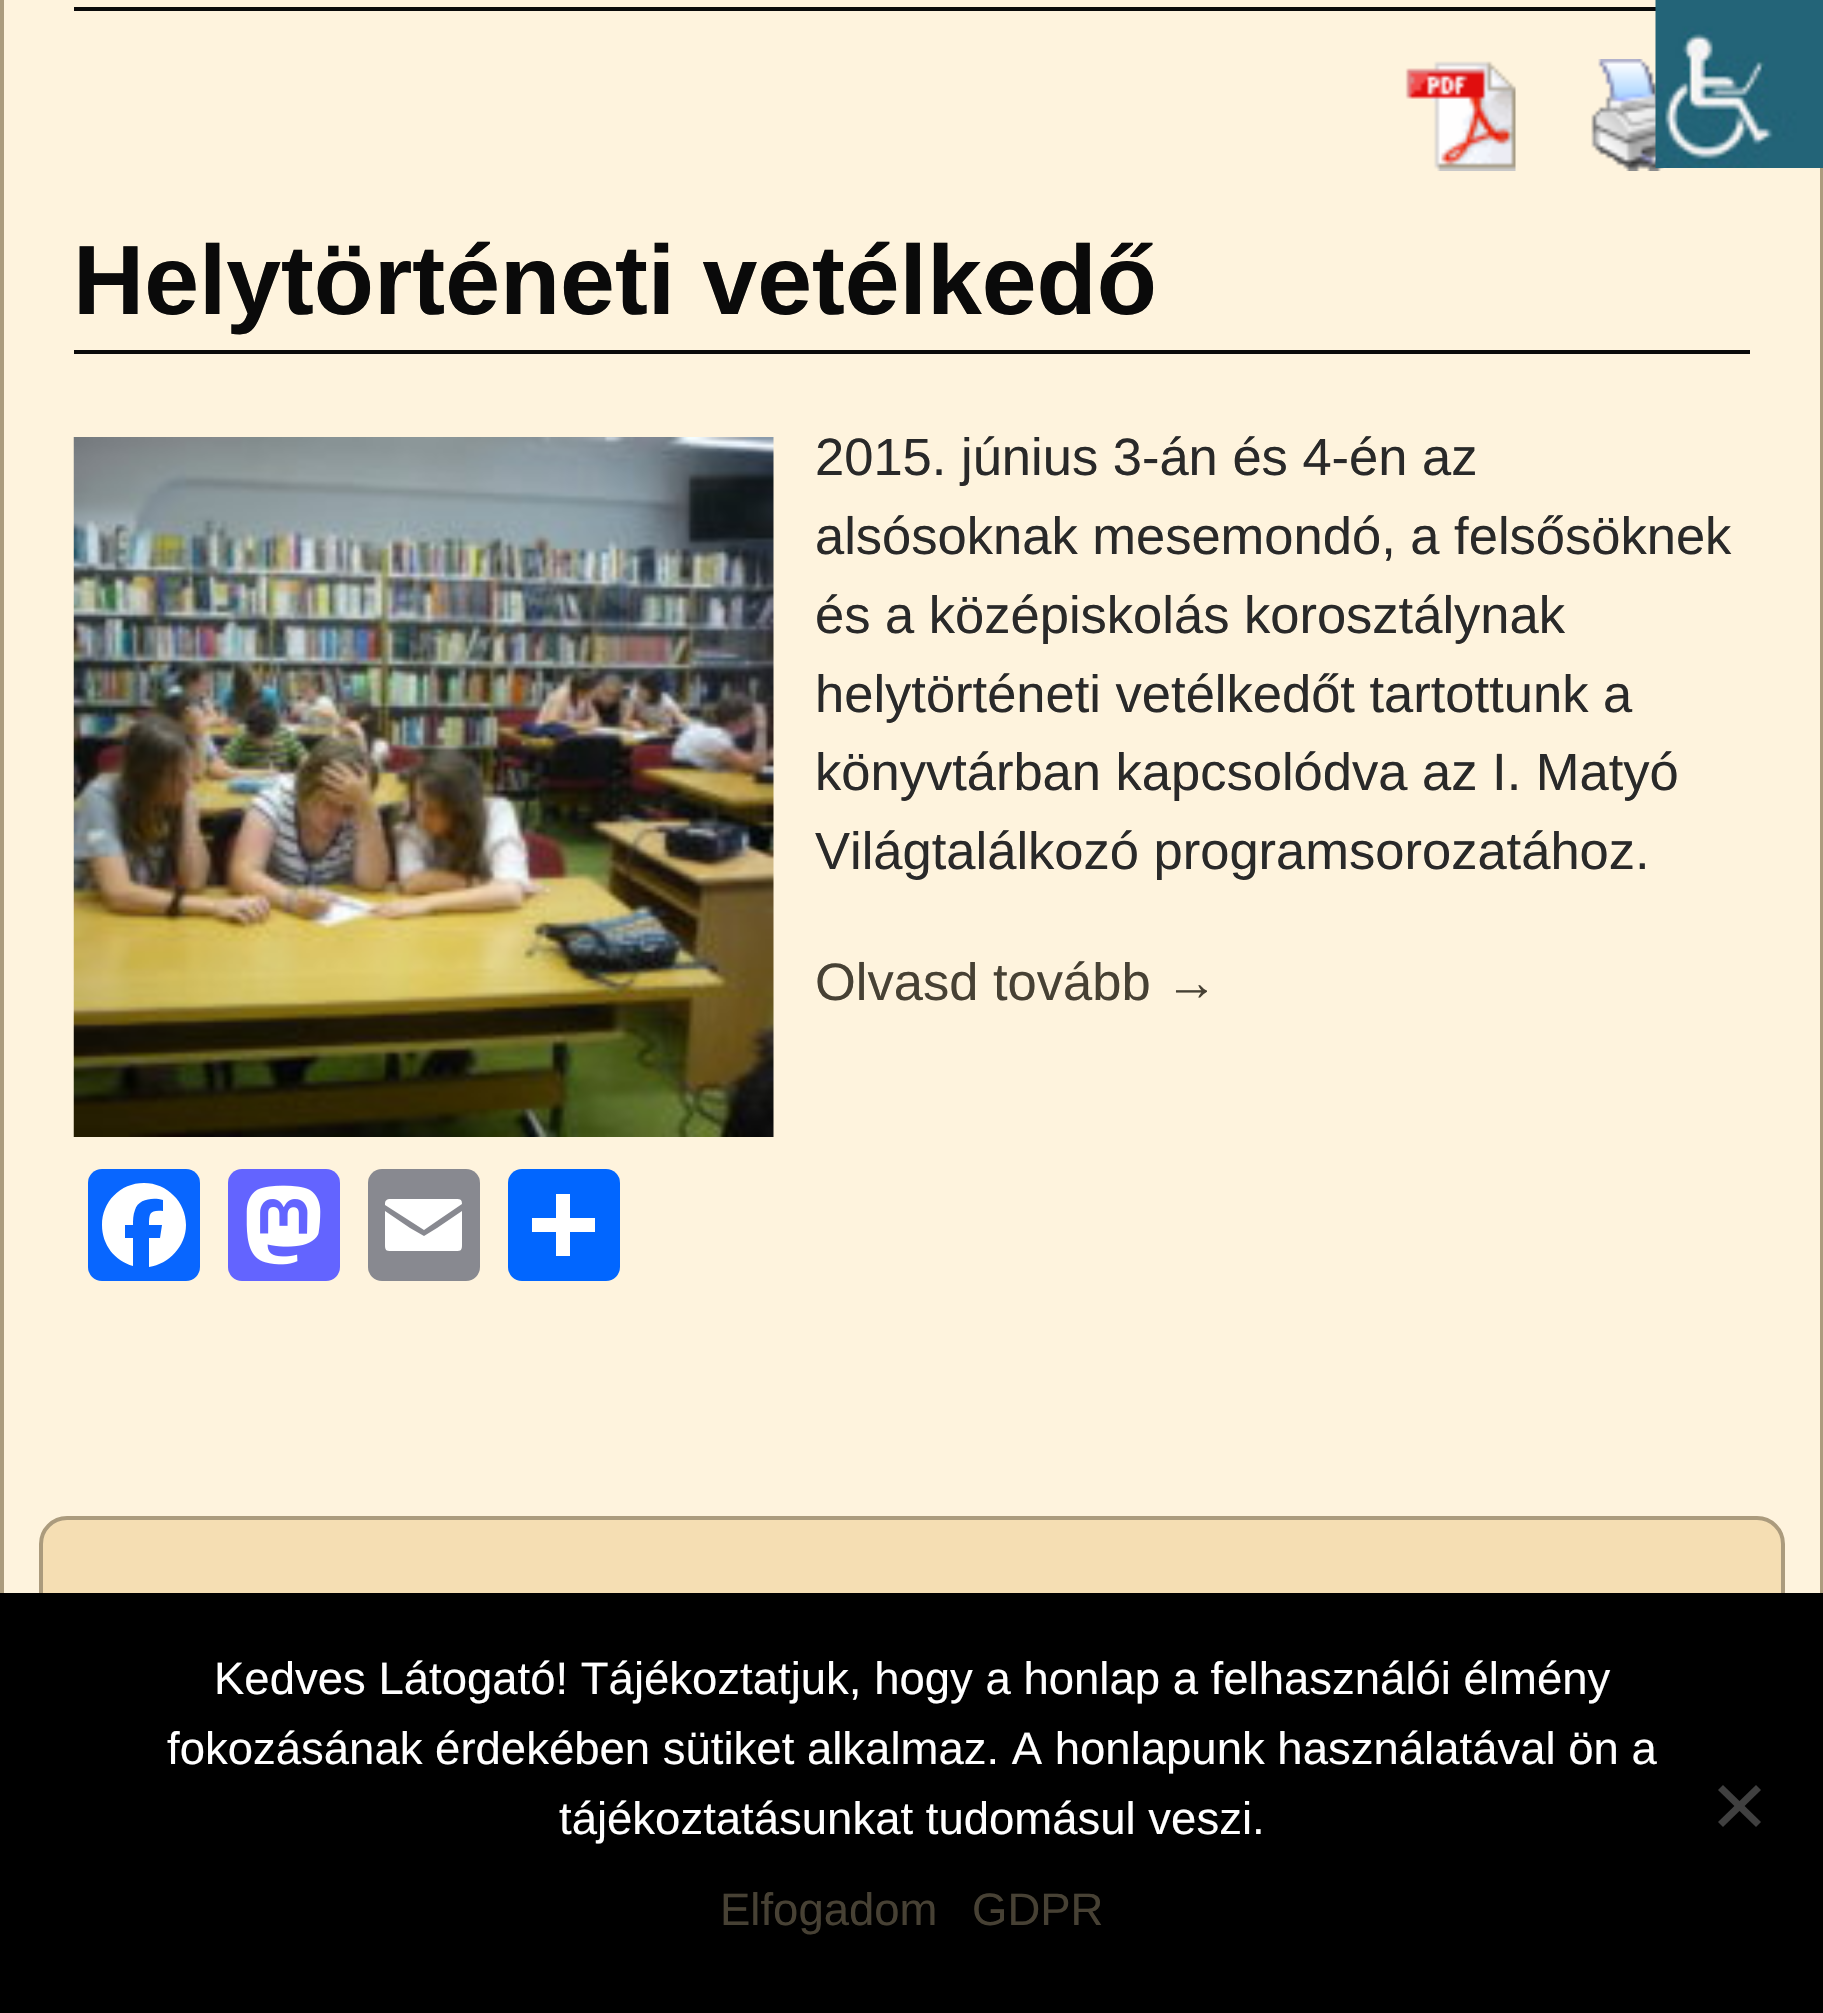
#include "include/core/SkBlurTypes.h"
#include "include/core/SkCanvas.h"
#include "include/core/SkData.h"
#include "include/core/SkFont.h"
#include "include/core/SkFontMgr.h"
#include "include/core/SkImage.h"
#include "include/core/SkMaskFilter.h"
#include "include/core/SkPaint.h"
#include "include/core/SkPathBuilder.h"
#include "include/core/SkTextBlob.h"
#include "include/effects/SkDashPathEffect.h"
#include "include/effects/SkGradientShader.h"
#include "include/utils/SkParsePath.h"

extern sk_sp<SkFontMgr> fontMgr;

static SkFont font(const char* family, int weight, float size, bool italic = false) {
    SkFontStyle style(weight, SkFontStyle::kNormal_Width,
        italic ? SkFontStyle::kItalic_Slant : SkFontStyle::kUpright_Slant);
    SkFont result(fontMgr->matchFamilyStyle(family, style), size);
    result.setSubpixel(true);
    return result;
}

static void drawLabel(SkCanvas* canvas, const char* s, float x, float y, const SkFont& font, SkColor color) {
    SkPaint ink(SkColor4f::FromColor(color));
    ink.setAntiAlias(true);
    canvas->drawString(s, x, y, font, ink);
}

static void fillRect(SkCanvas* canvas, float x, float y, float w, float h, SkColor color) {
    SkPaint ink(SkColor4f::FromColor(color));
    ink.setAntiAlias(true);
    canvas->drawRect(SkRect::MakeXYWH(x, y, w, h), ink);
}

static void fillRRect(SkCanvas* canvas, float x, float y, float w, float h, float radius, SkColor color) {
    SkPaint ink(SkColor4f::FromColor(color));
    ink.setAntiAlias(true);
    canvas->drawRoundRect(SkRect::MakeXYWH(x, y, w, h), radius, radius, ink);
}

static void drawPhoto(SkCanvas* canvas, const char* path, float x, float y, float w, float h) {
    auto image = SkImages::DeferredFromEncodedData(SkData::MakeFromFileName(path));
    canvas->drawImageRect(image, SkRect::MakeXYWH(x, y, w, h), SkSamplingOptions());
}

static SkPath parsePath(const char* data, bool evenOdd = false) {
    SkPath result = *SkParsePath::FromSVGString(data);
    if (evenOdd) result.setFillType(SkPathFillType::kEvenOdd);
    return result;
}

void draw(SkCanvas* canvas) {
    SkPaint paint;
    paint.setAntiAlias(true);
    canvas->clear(0xFFFEF3DD);
    paint.setStroke(true);
    paint.setStrokeWidth(4);
    paint.setColor(0xFFAB9B7D);
    canvas->drawRect(SkRect::MakeXYWH(2, -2, 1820, 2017), paint);
    fillRect(canvas, 74, 7, 1582, 4, 0xFF0A0A0A);
    drawPhoto(canvas, "assets/img3.png", 1591, 59, 73, 112);
    drawPhoto(canvas, "assets/img1.png", 1655, 0, 168, 168);
    drawPhoto(canvas, "assets/img2.png", 1405, 61, 111, 110);
    fillRect(canvas, 74, 350, 1676, 4, 0xFF0A0A0A);
    SkFont font1 = font("Liberation Sans", 700, 98.5f);
    drawLabel(canvas, "Helytörténeti vetélkedő", 73, 314, font1, 0xFF0A0A0A);
    drawPhoto(canvas, "assets/img4.png", 73, 437, 701, 700);
    SkFont font2 = font("Liberation Sans", 400, 52.5f);
    drawLabel(canvas, "2015. június 3-án és 4-én az", 815, 475, font2, 0xFF292929);
    drawLabel(canvas, "alsósoknak mesemondó, a felsősöknek", 815, 554, font2, 0xFF292929);
    drawLabel(canvas, "és a középiskolás korosztálynak", 815, 633, font2, 0xFF292929);
    drawLabel(canvas, "helytörténeti vetélkedőt tartottunk a", 815, 712, font2, 0xFF292929);
    drawLabel(canvas, "könyvtárban kapcsolódva az I. Matyó", 815, 790, font2, 0xFF292929);
    drawLabel(canvas, "Világtalálkozó programsorozatához.", 815, 869, font2, 0xFF292929);
    drawLabel(canvas, "Olvasd tovább →", 815, 1000, font2, 0xFF474134);
    fillRRect(canvas, 88, 1169, 112, 112, 14, 0xFF0866FF);
    paint.setStroke(false);
    paint.setColor(0xFFFFFFFF);
    canvas->drawPath(parsePath("M186 1225C186 1202 167 1183 144 1183C120 1183 102 1202 102 1225C102 1245 115 1261 133 1266V1238H125V1225H133C133 1220 133 1215 135 1210C138 1199 153 1197 163 1200V1211C150 1210 149 1213 149 1225H162L160 1238H149V1267C169 1264 186 1246 186 1225"), paint);
    fillRRect(canvas, 228, 1169, 112, 112, 14, 0xFF6364FF);
    drawPhoto(canvas, "assets/img5.png", 246, 1185, 75, 80);
    fillRRect(canvas, 368, 1169, 112, 112, 14, 0xFF888990);
    canvas->drawPath(parsePath("M462 1245V1211L437 1228L424 1236L410 1228L385 1211V1245C385 1250 386 1251 391 1251H456C461 1251 462 1250 462 1245M462 1204C462 1200 461 1199 456 1199H391C386 1199 385 1201 385 1204V1205L410 1221L424 1230L437 1221Z"), paint);
    fillRRect(canvas, 508, 1169, 112, 112, 14, 0xFF0166FF);
    fillRect(canvas, 556, 1194, 14, 62, 0xFFFFFFFF);
    fillRect(canvas, 532, 1218, 63, 14, 0xFFFFFFFF);
    paint.setColor(0xFFF5DEB3);
    canvas->drawRoundRect(SkRect::MakeXYWH(41, 1518, 1742, 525), 26, 26, paint);
    paint.setStroke(true);
    paint.setColor(0xFFAB9B7D);
    canvas->drawRoundRect(SkRect::MakeXYWH(41, 1518, 1742, 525), 26, 26, paint);
    fillRect(canvas, 0, 1593, 1823, 420, 0xFF000000);
    SkFont font3 = font("Liberation Sans", 400, 45.5f);
    drawLabel(canvas, "Kedves Látogató! Tájékoztatjuk, hogy a honlap a felhasználói élmény", 214, 1694, font3, 0xFFFFFFFF);
    drawLabel(canvas, "fokozásának érdekében sütiket alkalmaz. A honlapunk használatával ön a", 167, 1764, font3, 0xFFFFFFFF);
    drawLabel(canvas, "tájékoztatásunkat tudomásul veszi.", 559, 1834, font3, 0xFFFFFFFF);
    paint.setStroke(false);
    paint.setColor(0xFF404040);
    canvas->drawPath(parsePath("M1756 1785L1761 1790L1723 1827L1718 1822Z"), paint);
    canvas->drawPath(parsePath("M1718 1790L1723 1785L1761 1822L1756 1827Z"), paint);
    drawLabel(canvas, "Elfogadom", 720, 1925, font3, 0xFF474134);
    drawLabel(canvas, "GDPR", 972, 1925, font3, 0xFF474134);
}
